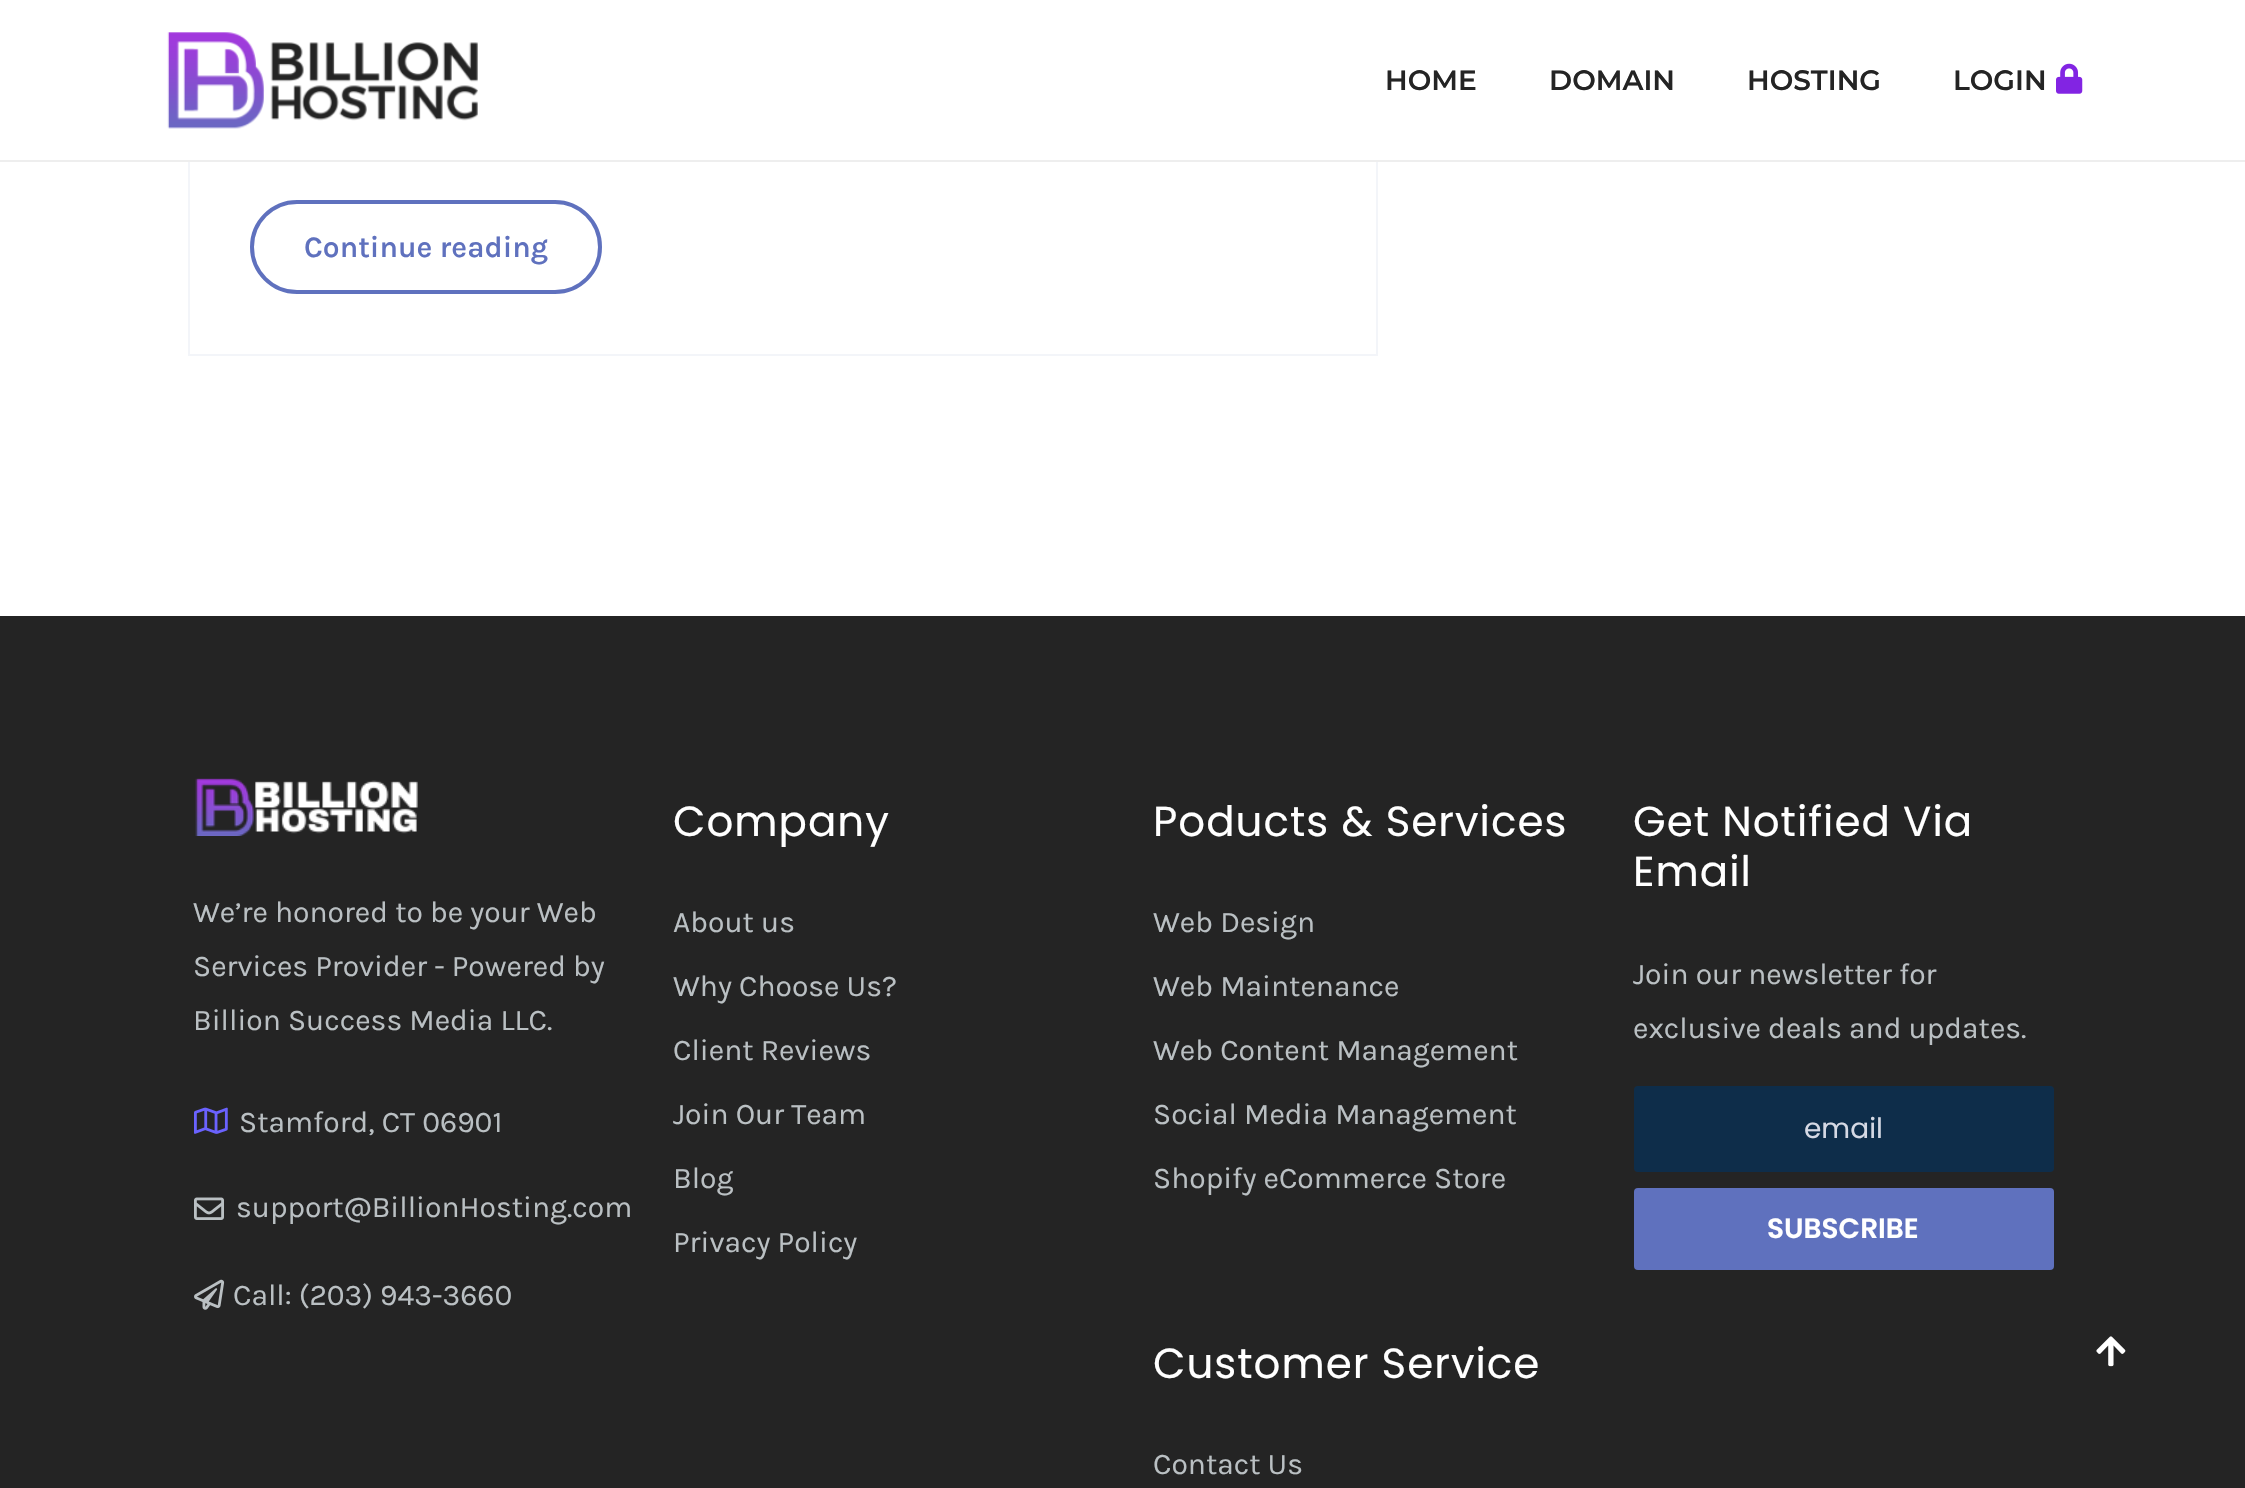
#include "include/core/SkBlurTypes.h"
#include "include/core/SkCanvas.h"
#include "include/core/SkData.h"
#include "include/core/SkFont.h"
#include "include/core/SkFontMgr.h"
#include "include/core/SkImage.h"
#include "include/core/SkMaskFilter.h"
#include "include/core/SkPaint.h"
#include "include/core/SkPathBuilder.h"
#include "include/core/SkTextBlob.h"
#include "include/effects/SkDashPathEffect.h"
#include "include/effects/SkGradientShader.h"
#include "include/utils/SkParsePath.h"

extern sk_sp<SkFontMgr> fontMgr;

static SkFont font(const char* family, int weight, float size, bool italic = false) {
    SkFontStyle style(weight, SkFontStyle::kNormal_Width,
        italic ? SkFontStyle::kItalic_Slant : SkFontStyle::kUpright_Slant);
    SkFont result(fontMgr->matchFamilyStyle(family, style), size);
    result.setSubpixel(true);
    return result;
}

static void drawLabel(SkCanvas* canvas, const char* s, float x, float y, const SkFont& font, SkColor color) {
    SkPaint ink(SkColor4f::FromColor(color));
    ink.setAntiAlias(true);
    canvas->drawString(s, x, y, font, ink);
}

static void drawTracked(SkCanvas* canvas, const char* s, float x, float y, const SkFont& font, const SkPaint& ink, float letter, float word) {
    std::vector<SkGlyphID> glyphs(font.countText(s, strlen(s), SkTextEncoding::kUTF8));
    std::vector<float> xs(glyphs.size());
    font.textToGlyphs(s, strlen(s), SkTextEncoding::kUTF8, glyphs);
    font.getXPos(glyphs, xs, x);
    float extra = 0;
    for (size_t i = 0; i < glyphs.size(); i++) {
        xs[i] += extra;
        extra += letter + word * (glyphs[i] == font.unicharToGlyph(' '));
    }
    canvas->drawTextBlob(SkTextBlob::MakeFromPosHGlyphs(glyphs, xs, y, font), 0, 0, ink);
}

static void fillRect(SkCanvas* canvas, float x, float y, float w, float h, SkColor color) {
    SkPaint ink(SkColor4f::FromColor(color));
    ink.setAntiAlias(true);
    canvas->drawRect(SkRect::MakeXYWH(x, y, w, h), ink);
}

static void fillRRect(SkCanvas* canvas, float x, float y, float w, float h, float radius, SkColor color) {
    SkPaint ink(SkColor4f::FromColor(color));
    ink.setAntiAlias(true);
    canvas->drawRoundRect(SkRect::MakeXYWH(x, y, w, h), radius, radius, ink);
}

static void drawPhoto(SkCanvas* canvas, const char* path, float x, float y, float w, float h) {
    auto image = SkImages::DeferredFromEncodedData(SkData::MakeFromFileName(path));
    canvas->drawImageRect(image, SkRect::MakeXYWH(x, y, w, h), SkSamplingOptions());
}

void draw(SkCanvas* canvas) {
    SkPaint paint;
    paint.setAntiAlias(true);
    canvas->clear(0xFFFFFFFF);
    paint.setStroke(true);
    paint.setStrokeWidth(2);
    paint.setColor(0xFFF3F5F9);
    canvas->drawRect(SkRect::MakeXYWH(189, -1, 1188, 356), paint);
    fillRect(canvas, 188, 0, 1190, 160, 0xFFFFFFFF);
    fillRect(canvas, 0, 160, 2245, 2, 0xFFEEEEEE);
    drawPhoto(canvas, "assets/img1.png", 167, 32, 311, 97);
    SkFont font1 = font("Montserrat", 600, 28);
    drawLabel(canvas, "HOME", 1385, 90, font1, 0xFF242424);
    drawLabel(canvas, "DOMAIN", 1549, 90, font1, 0xFF242424);
    drawLabel(canvas, "HOSTING", 1747, 90, font1, 0xFF242424);
    drawLabel(canvas, "LOGIN", 1953, 90, font1, 0xFF242424);
    drawPhoto(canvas, "assets/img2.png", 2056, 63, 27, 31);
    paint.setStrokeWidth(4);
    paint.setColor(0xFF5F71BE);
    canvas->drawRoundRect(SkRect::MakeXYWH(252, 202, 348, 90), 45, 45, paint);
    SkFont font2 = font("Karla", 600, 30);
    drawLabel(canvas, "Continue reading", 304, 257, font2, 0xFF5F71BE);
    fillRect(canvas, 0, 616, 2245, 872, 0xFF242424);
    drawPhoto(canvas, "assets/img3.png", 195, 778, 223, 58);
    SkFont font3 = font("Karla", 400, 30);
    drawLabel(canvas, "We’re honored to be your Web", 193, 922, font3, 0xFFBAC0C3);
    drawLabel(canvas, "Services Provider - Powered by", 193, 976, font3, 0xFFBAC0C3);
    drawLabel(canvas, "Billion Success Media LLC.", 193, 1030, font3, 0xFFBAC0C3);
    drawPhoto(canvas, "assets/img4.png", 194, 1107, 34, 27);
    drawLabel(canvas, "Stamford, CT 06901", 239, 1132, font3, 0xFFBAC0C3);
    drawPhoto(canvas, "assets/img5.png", 194, 1197, 30, 23);
    drawLabel(canvas, "support@BillionHosting.com", 236, 1217, font3, 0xFFBAC0C3);
    drawPhoto(canvas, "assets/img6.png", 194, 1279, 31, 31);
    drawLabel(canvas, "Call: (203) 943-3660", 233, 1305, font3, 0xFFBAC0C3);
    SkFont font4 = font("Poppins", 400, 42);
    paint.setStroke(false);
    paint.setColor(0xFFFFFFFF);
    drawTracked(canvas, "Company", 673, 836, font4, paint, 1, 0);
    drawLabel(canvas, "About us", 673, 932, font3, 0xFFBAC0C3);
    drawLabel(canvas, "Why Choose Us?", 673, 996, font3, 0xFFBAC0C3);
    drawLabel(canvas, "Client Reviews", 673, 1060, font3, 0xFFBAC0C3);
    drawLabel(canvas, "Join Our Team", 673, 1124, font3, 0xFFBAC0C3);
    drawLabel(canvas, "Blog", 673, 1188, font3, 0xFFBAC0C3);
    drawLabel(canvas, "Privacy Policy", 673, 1252, font3, 0xFFBAC0C3);
    drawTracked(canvas, "Poducts & Services", 1153, 836, font4, paint, 1, 0);
    drawLabel(canvas, "Web Design", 1153, 932, font3, 0xFFBAC0C3);
    drawLabel(canvas, "Web Maintenance", 1153, 996, font3, 0xFFBAC0C3);
    drawLabel(canvas, "Web Content Management", 1153, 1060, font3, 0xFFBAC0C3);
    drawLabel(canvas, "Social Media Management", 1153, 1124, font3, 0xFFBAC0C3);
    drawLabel(canvas, "Shopify eCommerce Store", 1153, 1188, font3, 0xFFBAC0C3);
    drawTracked(canvas, "Customer Service", 1153, 1378, font4, paint, 1, 0);
    drawLabel(canvas, "Contact Us", 1153, 1474, font3, 0xFFBAC0C3);
    drawTracked(canvas, "Get Notified Via", 1633, 836, font4, paint, 1, 0);
    drawTracked(canvas, "Email", 1633, 886, font4, paint, 1, 0);
    drawLabel(canvas, "Join our newsletter for", 1633, 984, font3, 0xFFBAC0C3);
    drawLabel(canvas, "exclusive deals and updates.", 1633, 1038, font3, 0xFFBAC0C3);
    paint.setColor(0xFF0E2D4A);
    canvas->drawRoundRect(SkRect::MakeXYWH(1635, 1087, 418, 84), 3, 3, paint);
    paint.setStroke(true);
    paint.setStrokeWidth(2);
    canvas->drawRoundRect(SkRect::MakeXYWH(1635, 1087, 418, 84), 3, 3, paint);
    SkFont font5 = font("Poppins", 400, 28);
    drawLabel(canvas, "email", 1804, 1138, font5, 0xFFD5D9E5);
    fillRRect(canvas, 1634, 1188, 420, 82, 4, 0xFF5F71BE);
    SkFont font6 = font("Poppins", 600, 28);
    drawLabel(canvas, "SUBSCRIBE", 1767, 1238, font6, 0xFFFFFFFF);
    drawPhoto(canvas, "assets/img7.png", 2096, 1336, 30, 31);
}
